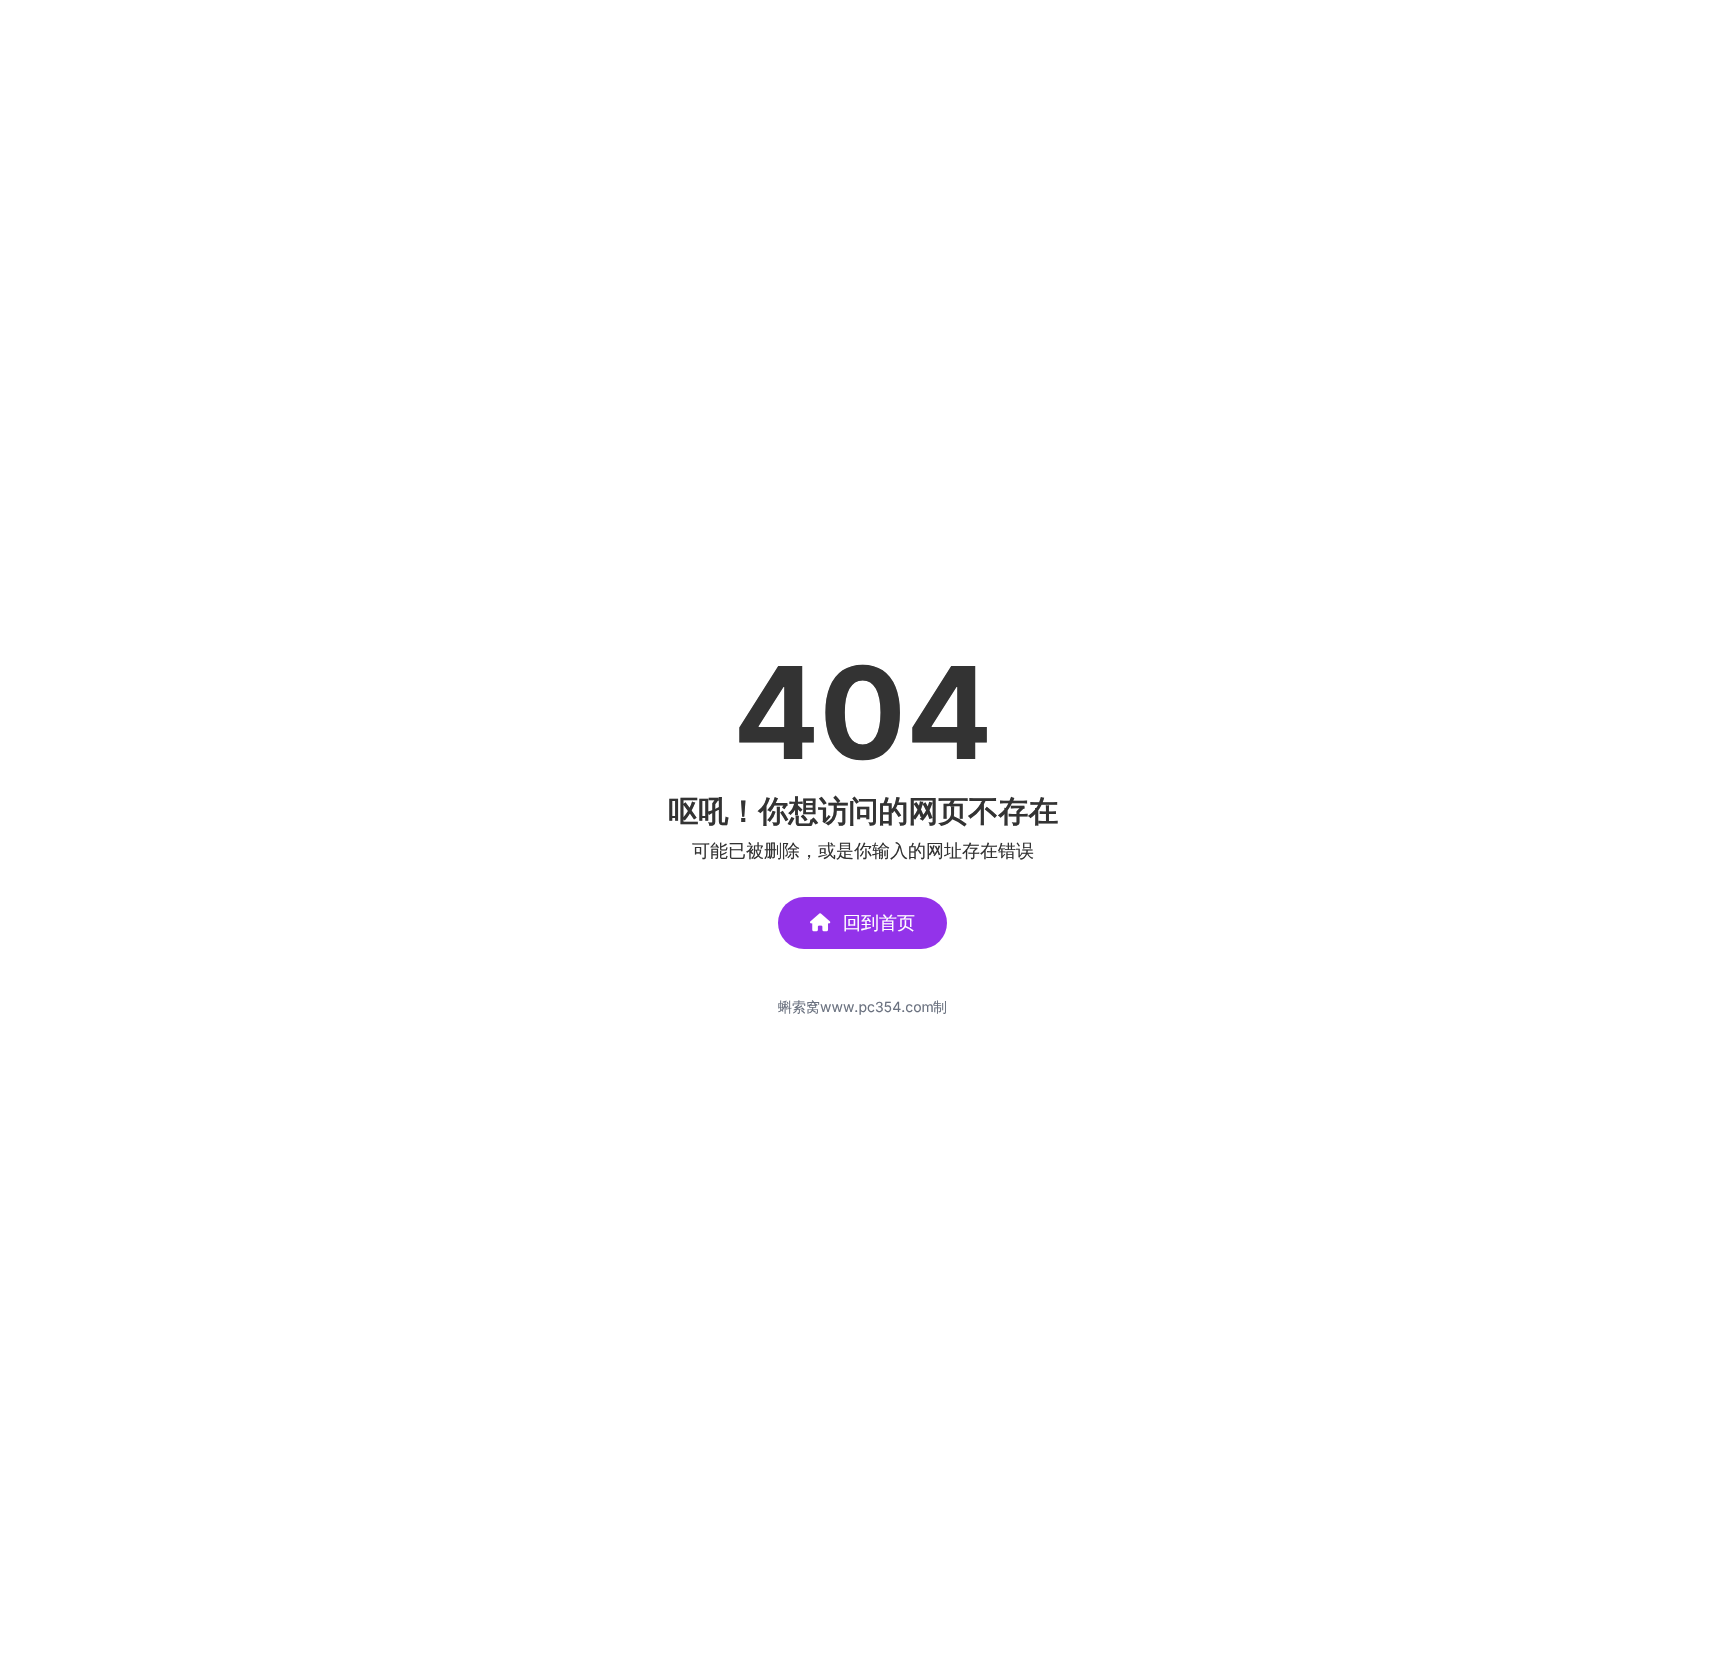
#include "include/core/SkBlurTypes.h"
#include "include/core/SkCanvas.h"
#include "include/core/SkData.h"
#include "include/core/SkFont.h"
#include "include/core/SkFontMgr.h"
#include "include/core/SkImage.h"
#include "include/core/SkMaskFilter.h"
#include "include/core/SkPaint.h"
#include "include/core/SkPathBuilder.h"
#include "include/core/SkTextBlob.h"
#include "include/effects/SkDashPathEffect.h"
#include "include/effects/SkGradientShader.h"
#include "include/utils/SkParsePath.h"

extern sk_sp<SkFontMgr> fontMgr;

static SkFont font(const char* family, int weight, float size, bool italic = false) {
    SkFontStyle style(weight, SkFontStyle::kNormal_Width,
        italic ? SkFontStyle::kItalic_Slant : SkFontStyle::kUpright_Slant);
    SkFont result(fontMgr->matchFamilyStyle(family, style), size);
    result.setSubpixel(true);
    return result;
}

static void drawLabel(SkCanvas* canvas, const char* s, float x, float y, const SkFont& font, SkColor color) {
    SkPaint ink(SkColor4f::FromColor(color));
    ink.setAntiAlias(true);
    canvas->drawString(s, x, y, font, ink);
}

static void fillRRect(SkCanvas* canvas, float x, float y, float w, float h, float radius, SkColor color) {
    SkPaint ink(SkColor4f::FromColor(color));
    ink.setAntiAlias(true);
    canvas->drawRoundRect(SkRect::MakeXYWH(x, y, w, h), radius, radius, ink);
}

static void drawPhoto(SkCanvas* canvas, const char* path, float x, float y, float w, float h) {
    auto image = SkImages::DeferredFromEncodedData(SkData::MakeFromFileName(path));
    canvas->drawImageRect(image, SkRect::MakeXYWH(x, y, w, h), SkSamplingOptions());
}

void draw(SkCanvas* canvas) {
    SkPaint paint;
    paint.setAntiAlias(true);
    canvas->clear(0xFFFFFFFF);
    SkFont font1 = font("Inter", 700, 128);
    drawLabel(canvas, "404", 733, 759, font1, 0xFF333333);
    SkFont font2 = font("WenQuanYi Zen Hei", 700, 30);
    drawLabel(canvas, "呕吼！你想访问的网页不存在", 668, 822, font2, 0xFF333333);
    SkFont font3 = font("WenQuanYi Zen Hei", 500, 18);
    drawLabel(canvas, "可能已被删除，或是你输入的网址存在错误", 692, 857, font3, 0xFF333333);
    fillRRect(canvas, 778, 897, 169, 52, 26, 0xFF9333EA);
    drawPhoto(canvas, "assets/img1.png", 810, 913, 21, 19);
    drawLabel(canvas, "回到首页", 843, 929, font3, 0xFFFFFFFF);
    SkFont font4 = font("WenQuanYi Zen Hei", 500, 14);
    drawLabel(canvas, "蝌索窝", 778, 1012, font4, 0xFF6B7280);
    SkFont font5 = font("Inter", 400, 14);
    drawLabel(canvas, "www.pc354.com", 820, 1012, font5, 0xFF6B7280);
    drawLabel(canvas, "制", 933, 1012, font4, 0xFF6B7280);
}
